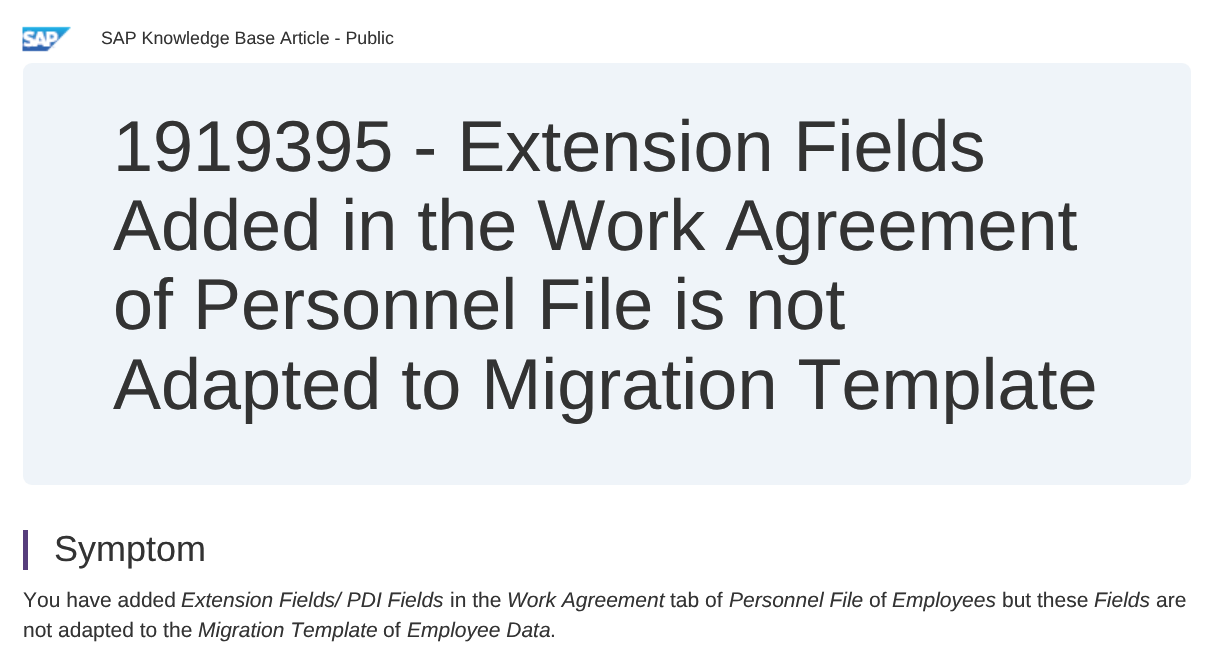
#include "include/core/SkBlurTypes.h"
#include "include/core/SkCanvas.h"
#include "include/core/SkData.h"
#include "include/core/SkFont.h"
#include "include/core/SkFontMgr.h"
#include "include/core/SkImage.h"
#include "include/core/SkMaskFilter.h"
#include "include/core/SkPaint.h"
#include "include/core/SkPathBuilder.h"
#include "include/core/SkTextBlob.h"
#include "include/effects/SkDashPathEffect.h"
#include "include/effects/SkGradientShader.h"
#include "include/utils/SkParsePath.h"

extern sk_sp<SkFontMgr> fontMgr;

static SkFont font(const char* family, int weight, float size, bool italic = false) {
    SkFontStyle style(weight, SkFontStyle::kNormal_Width,
        italic ? SkFontStyle::kItalic_Slant : SkFontStyle::kUpright_Slant);
    SkFont result(fontMgr->matchFamilyStyle(family, style), size);
    result.setSubpixel(true);
    return result;
}

static void drawLabel(SkCanvas* canvas, const char* s, float x, float y, const SkFont& font, SkColor color) {
    SkPaint ink(SkColor4f::FromColor(color));
    ink.setAntiAlias(true);
    canvas->drawString(s, x, y, font, ink);
}

static void fillRect(SkCanvas* canvas, float x, float y, float w, float h, SkColor color) {
    SkPaint ink(SkColor4f::FromColor(color));
    ink.setAntiAlias(true);
    canvas->drawRect(SkRect::MakeXYWH(x, y, w, h), ink);
}

static void fillRRect(SkCanvas* canvas, float x, float y, float w, float h, float radius, SkColor color) {
    SkPaint ink(SkColor4f::FromColor(color));
    ink.setAntiAlias(true);
    canvas->drawRoundRect(SkRect::MakeXYWH(x, y, w, h), radius, radius, ink);
}

static void drawPhoto(SkCanvas* canvas, const char* path, float x, float y, float w, float h) {
    auto image = SkImages::DeferredFromEncodedData(SkData::MakeFromFileName(path));
    canvas->drawImageRect(image, SkRect::MakeXYWH(x, y, w, h), SkSamplingOptions());
}

void draw(SkCanvas* canvas) {
    SkPaint paint;
    paint.setAntiAlias(true);
    canvas->clear(0xFFFFFFFF);
    drawPhoto(canvas, "assets/img1.png", 22, 26, 49, 26);
    SkFont font1 = font("Liberation Sans", 400, 17.8f);
    drawLabel(canvas, "SAP Knowledge Base Article - Public", 101, 44, font1, 0xFF333333);
    fillRRect(canvas, 23, 63, 1168, 422, 9, 0xFFEFF4F9);
    SkFont font2 = font("Liberation Sans", 400, 72);
    drawLabel(canvas, "1919395 - Extension Fields", 113, 171, font2, 0xFF333333);
    drawLabel(canvas, "Added in the Work Agreement", 113, 250, font2, 0xFF333333);
    drawLabel(canvas, "of Personnel File is not", 113, 329, font2, 0xFF333333);
    drawLabel(canvas, "Adapted to Migration Template", 113, 409, font2, 0xFF333333);
    fillRect(canvas, 23, 530, 5, 40, 0xFF563D7C);
    SkFont font3 = font("Liberation Sans", 400, 36);
    drawLabel(canvas, "Symptom", 54, 561, font3, 0xFF333333);
    SkFont font4 = font("Liberation Sans", 400, 21);
    drawLabel(canvas, "You have added", 23, 607, font4, 0xFF333333);
    SkFont font5 = font("Liberation Sans", 400, 21, true);
    drawLabel(canvas, "Extension Fields/ PDI Fields", 181, 607, font5, 0xFF333333);
    drawLabel(canvas, "in the", 450, 607, font4, 0xFF333333);
    drawLabel(canvas, "Work Agreement", 507, 607, font5, 0xFF333333);
    drawLabel(canvas, "tab of", 670, 607, font4, 0xFF333333);
    drawLabel(canvas, "Personnel File", 729, 607, font5, 0xFF333333);
    drawLabel(canvas, "of", 869, 607, font4, 0xFF333333);
    drawLabel(canvas, "Employees", 892, 607, font5, 0xFF333333);
    drawLabel(canvas, "but these", 1002, 607, font4, 0xFF333333);
    drawLabel(canvas, "Fields", 1094, 607, font5, 0xFF333333);
    drawLabel(canvas, "are", 1156, 607, font4, 0xFF333333);
    drawLabel(canvas, "not adapted to the", 23, 637, font4, 0xFF333333);
    drawLabel(canvas, "Migration Template", 198, 637, font5, 0xFF333333);
    drawLabel(canvas, "of", 383, 637, font4, 0xFF333333);
    drawLabel(canvas, "Employee Data", 407, 637, font5, 0xFF333333);
    drawLabel(canvas, ".", 550, 637, font4, 0xFF333333);
}
